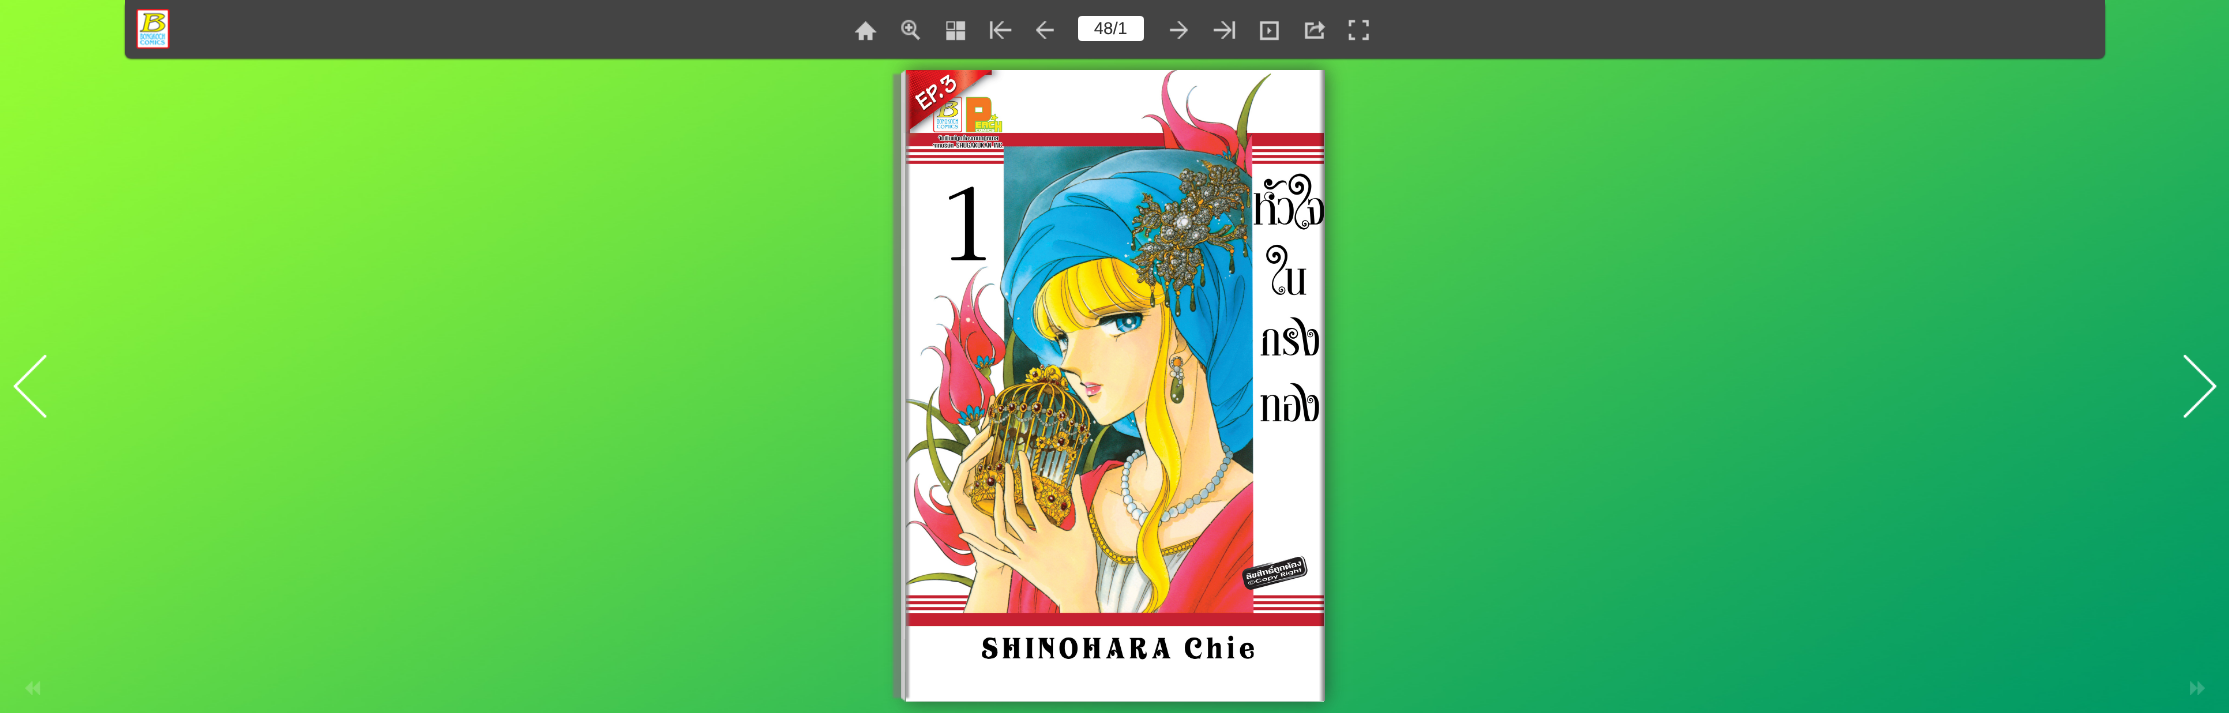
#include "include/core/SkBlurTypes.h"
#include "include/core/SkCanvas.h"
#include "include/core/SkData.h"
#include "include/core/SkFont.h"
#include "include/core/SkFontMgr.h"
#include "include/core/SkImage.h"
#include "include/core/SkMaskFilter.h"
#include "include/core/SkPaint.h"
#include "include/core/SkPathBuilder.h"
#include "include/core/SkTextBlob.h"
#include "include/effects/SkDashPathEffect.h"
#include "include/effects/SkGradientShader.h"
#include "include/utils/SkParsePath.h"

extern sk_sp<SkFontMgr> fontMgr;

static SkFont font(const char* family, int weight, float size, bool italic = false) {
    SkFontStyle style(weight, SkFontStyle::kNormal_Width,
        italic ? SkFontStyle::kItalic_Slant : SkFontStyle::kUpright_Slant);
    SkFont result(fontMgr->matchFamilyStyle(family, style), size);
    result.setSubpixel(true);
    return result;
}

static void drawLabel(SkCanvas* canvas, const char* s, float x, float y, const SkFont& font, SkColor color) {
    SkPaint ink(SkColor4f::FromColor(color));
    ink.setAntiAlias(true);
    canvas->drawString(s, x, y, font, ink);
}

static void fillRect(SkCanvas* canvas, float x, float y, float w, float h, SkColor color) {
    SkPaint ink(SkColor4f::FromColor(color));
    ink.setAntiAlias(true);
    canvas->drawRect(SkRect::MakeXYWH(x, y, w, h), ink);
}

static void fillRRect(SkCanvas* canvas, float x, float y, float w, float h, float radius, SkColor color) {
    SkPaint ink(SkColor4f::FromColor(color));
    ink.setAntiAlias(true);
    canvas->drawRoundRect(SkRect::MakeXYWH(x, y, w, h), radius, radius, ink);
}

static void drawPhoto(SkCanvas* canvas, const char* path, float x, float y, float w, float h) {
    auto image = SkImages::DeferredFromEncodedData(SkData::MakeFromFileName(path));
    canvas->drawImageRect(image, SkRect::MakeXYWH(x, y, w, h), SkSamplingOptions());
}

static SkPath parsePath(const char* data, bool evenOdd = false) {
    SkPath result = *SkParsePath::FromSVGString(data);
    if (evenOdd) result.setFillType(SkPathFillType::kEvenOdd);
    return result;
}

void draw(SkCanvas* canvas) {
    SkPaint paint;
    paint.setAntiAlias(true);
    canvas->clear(0xFFFFFFFF);
    drawPhoto(canvas, "assets/img1.png", 0, 0, 2229, 713);
    paint.setColor(0xFF303030);
    paint.setMaskFilter(SkMaskFilter::MakeBlur(kNormal_SkBlurStyle, 1));
    canvas->drawRoundRect(SkRect::MakeXYWH(125, 1, 1980, 58), 6, 6, paint);
    paint.setMaskFilter(nullptr);
    drawPhoto(canvas, "assets/img18.png", 906, 701, 418, 1);
    paint.setColor(0xB3282828);
    paint.setMaskFilter(SkMaskFilter::MakeBlur(kNormal_SkBlurStyle, 9.5f));
    canvas->drawRect(SkRect::MakeXYWH(906, 70, 419, 631), paint);
    paint.setMaskFilter(nullptr);
    paint.setColor(0xFF444444);
    canvas->drawPath(parsePath("M125 0H2105V52C2105 55.5 2102.5 58 2099 58H131C127.5 58 125 55.5 125 52Z"), paint);
    drawPhoto(canvas, "assets/img2.png", 136, 9, 34, 40);
    drawPhoto(canvas, "assets/img3.png", 854, 21, 23, 20);
    drawPhoto(canvas, "assets/img4.png", 901, 19, 20, 22);
    drawPhoto(canvas, "assets/img5.png", 946, 21, 20, 20);
    drawPhoto(canvas, "assets/img6.png", 989, 21, 23, 18);
    drawPhoto(canvas, "assets/img7.png", 1036, 21, 18, 18);
    fillRRect(canvas, 1078, 16, 66, 25, 4, 0xFFFFFFFF);
    SkFont font1 = font("Liberation Sans", 400, 17);
    drawLabel(canvas, "48/1", 1094, 34, font1, 0xFF333333);
    drawPhoto(canvas, "assets/img8.png", 1169, 21, 19, 18);
    drawPhoto(canvas, "assets/img9.png", 1213, 21, 23, 18);
    drawPhoto(canvas, "assets/img10.png", 1259, 21, 20, 20);
    drawPhoto(canvas, "assets/img11.png", 1304, 21, 22, 18);
    drawPhoto(canvas, "assets/img12.png", 1348, 19, 21, 22);
    drawPhoto(canvas, "assets/img13.png", 13, 354, 34, 64);
    drawPhoto(canvas, "assets/img17.png", 906, 70, 418, 632);
    paint.setColor(0xB37D7D7D);
    paint.setMaskFilter(SkMaskFilter::MakeBlur(kNormal_SkBlurStyle, 1));
    canvas->drawRect(SkRect::MakeXYWH(893, 74, 16, 624), paint);
    paint.setMaskFilter(nullptr);
    drawPhoto(canvas, "assets/img14.png", 901, 70, 5, 63);
    drawPhoto(canvas, "assets/img15.png", 901, 133, 5, 506);
    drawPhoto(canvas, "assets/img16.png", 901, 639, 5, 63);
    fillRect(canvas, 1324, 70, 1, 631, 0xFFFFFFFF);
    {
        const SkColor colors[] = {0x80141414, 0x00141414};
        const float stops[] = {0, 1};
        const SkPoint ends[] = {{1324, 386}, {1319, 386}};
        paint.setShader(SkGradientShader::MakeLinear(ends, colors, stops, 2, SkTileMode::kClamp));
        paint.setAlpha(255);
    }
    canvas->drawRect(SkRect::MakeXYWH(1319, 70, 6, 631), paint);
    drawPhoto(canvas, "assets/img19.png", 2183, 354, 34, 64);
    drawPhoto(canvas, "assets/img20.png", 25, 681, 16, 14);
    drawPhoto(canvas, "assets/img21.png", 2190, 681, 15, 14);
}
